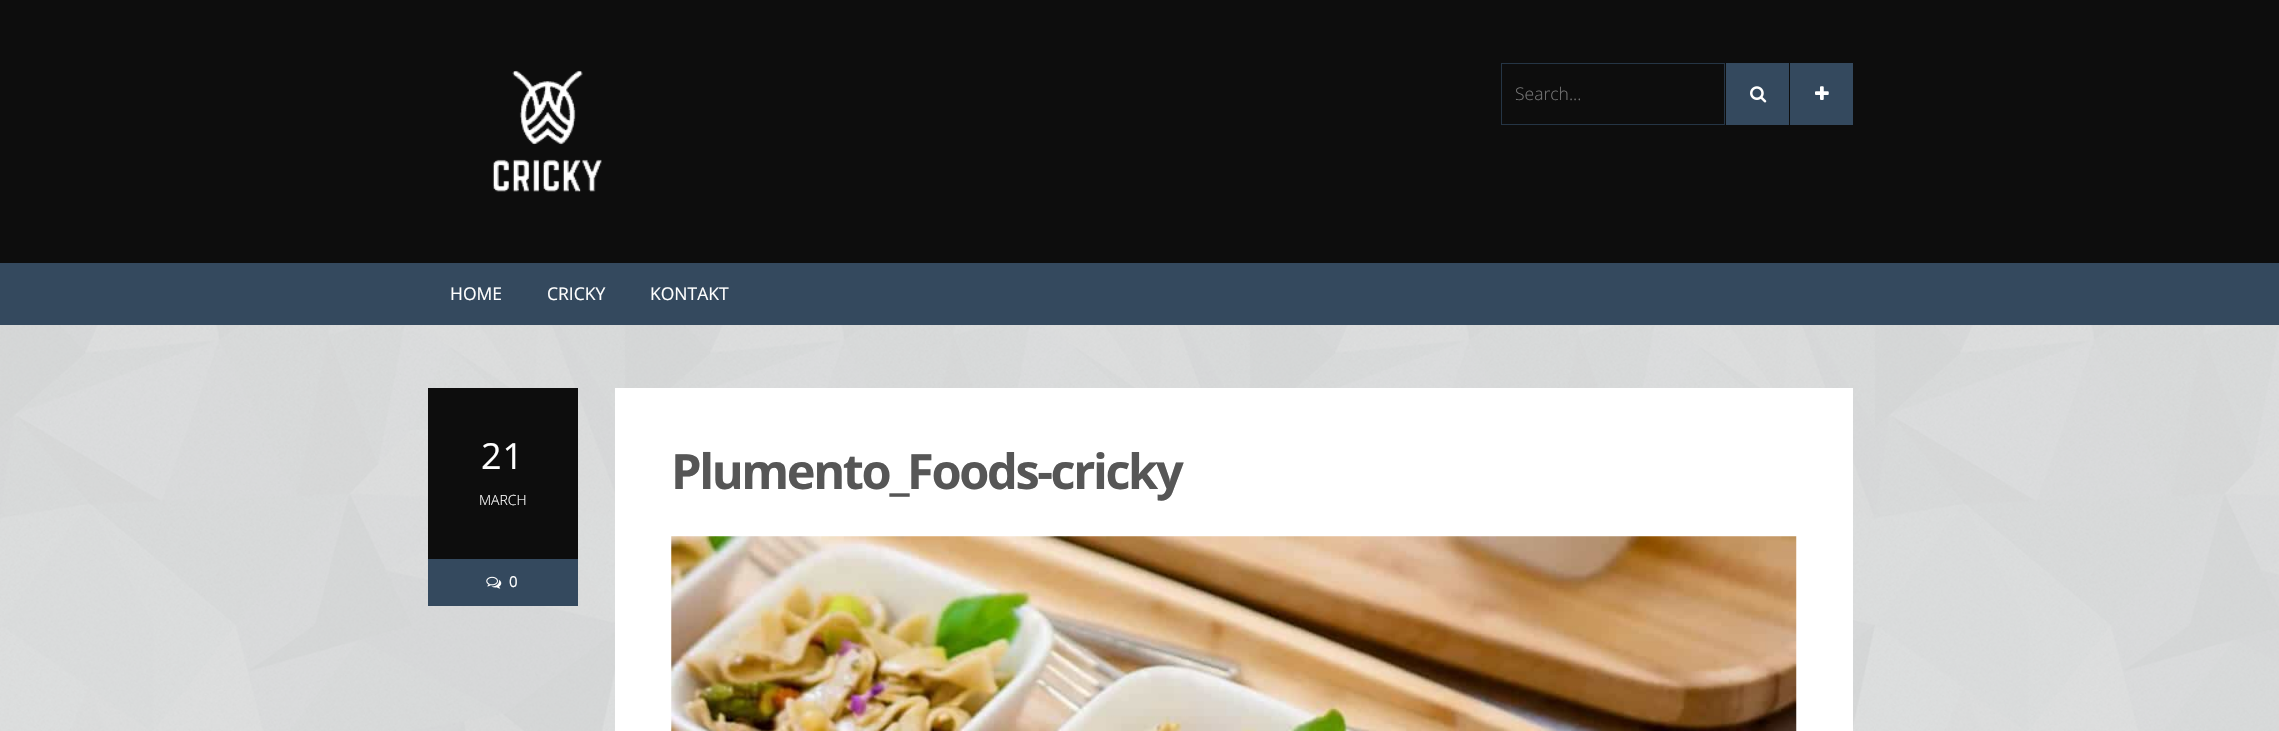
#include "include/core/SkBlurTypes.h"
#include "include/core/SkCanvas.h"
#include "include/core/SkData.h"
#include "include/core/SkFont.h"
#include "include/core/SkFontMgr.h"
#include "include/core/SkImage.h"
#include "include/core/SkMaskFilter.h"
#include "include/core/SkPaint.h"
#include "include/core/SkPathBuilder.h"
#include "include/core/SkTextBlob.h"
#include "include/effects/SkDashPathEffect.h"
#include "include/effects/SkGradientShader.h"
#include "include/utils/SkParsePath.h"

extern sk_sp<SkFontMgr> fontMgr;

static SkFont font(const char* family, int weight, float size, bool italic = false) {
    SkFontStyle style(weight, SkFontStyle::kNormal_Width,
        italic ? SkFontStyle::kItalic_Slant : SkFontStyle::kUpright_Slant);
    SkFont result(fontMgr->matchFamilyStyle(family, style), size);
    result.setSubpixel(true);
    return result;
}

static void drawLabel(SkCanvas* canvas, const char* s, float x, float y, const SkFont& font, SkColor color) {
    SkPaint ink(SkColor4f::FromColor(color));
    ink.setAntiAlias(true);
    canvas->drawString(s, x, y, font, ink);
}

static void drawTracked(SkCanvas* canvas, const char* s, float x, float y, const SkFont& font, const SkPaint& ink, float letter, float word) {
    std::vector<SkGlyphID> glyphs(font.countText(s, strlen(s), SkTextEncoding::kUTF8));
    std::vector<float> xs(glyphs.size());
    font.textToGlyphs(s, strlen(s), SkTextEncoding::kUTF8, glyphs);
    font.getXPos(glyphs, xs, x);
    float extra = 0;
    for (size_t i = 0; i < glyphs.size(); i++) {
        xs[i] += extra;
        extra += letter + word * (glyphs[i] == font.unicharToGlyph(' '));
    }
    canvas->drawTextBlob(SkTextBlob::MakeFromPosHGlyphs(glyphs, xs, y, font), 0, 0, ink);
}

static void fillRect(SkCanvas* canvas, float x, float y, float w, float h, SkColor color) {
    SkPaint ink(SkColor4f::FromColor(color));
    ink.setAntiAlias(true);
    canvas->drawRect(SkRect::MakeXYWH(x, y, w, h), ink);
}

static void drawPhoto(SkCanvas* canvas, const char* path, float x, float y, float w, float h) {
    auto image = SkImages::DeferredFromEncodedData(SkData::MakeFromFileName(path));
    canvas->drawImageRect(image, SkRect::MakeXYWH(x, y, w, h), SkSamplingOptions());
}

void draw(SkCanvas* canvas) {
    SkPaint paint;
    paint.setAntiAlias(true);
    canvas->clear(0xFFFFFFFF);
    drawPhoto(canvas, "assets/img1.png", 0, 325, 2279, 406);
    fillRect(canvas, 0, 0, 2279, 263, 0xFF0D0D0D);
    drawPhoto(canvas, "assets/img2.png", 492, 70, 110, 122);
    paint.setStroke(true);
    paint.setStrokeWidth(1);
    paint.setColor(0xFF253545);
    canvas->drawRect(SkRect::MakeXYWH(1501.5f, 63.5f, 223, 61), paint);
    SkFont font1 = font("Open Sans", 300, 17.5f);
    drawLabel(canvas, "Search...", 1515, 100, font1, 0xFF757575);
    fillRect(canvas, 1726, 63, 63, 62, 0xFF34495E);
    drawPhoto(canvas, "assets/img3.png", 1750, 86, 17, 17);
    fillRect(canvas, 1790, 63, 63, 62, 0xFF34495E);
    drawPhoto(canvas, "assets/img4.png", 1815, 86, 14, 14);
    fillRect(canvas, 0, 263, 2279, 62, 0xFF34495E);
    SkFont font2 = font("Open Sans", 400, 17.5f);
    drawLabel(canvas, "HOME", 450, 300, font2, 0xFFFFFFFF);
    drawLabel(canvas, "CRICKY", 547, 300, font2, 0xFFFFFFFF);
    drawLabel(canvas, "KONTAKT", 650, 300, font2, 0xFFFFFFFF);
    fillRect(canvas, 428, 388, 150, 171, 0xFF0D0D0D);
    SkFont font3 = font("Open Sans", 400, 36);
    paint.setStroke(false);
    paint.setColor(0xFFFFFFFF);
    drawTracked(canvas, "21", 481, 469, font3, paint, 1, 0);
    SkFont font4 = font("Open Sans", 300, 14);
    drawLabel(canvas, "MARCH", 479, 505, font4, 0xFFFFFFFF);
    fillRect(canvas, 428, 559, 150, 47, 0xFF34495E);
    drawPhoto(canvas, "assets/img5.png", 486, 576, 16, 13);
    SkFont font5 = font("Open Sans", 400, 15);
    drawTracked(canvas, "0", 509, 587, font5, paint, 1, 0);
    fillRect(canvas, 615, 388, 1238, 343, 0xFFFFFFFF);
    SkFont font6 = font("Open Sans", 700, 48.75f);
    paint.setColor(0xFF565656);
    drawTracked(canvas, "Plumento_Foods-cricky", 671, 489, font6, paint, -2.4f, 0);
    drawPhoto(canvas, "assets/img6.png", 671, 536, 1126, 195);
}
